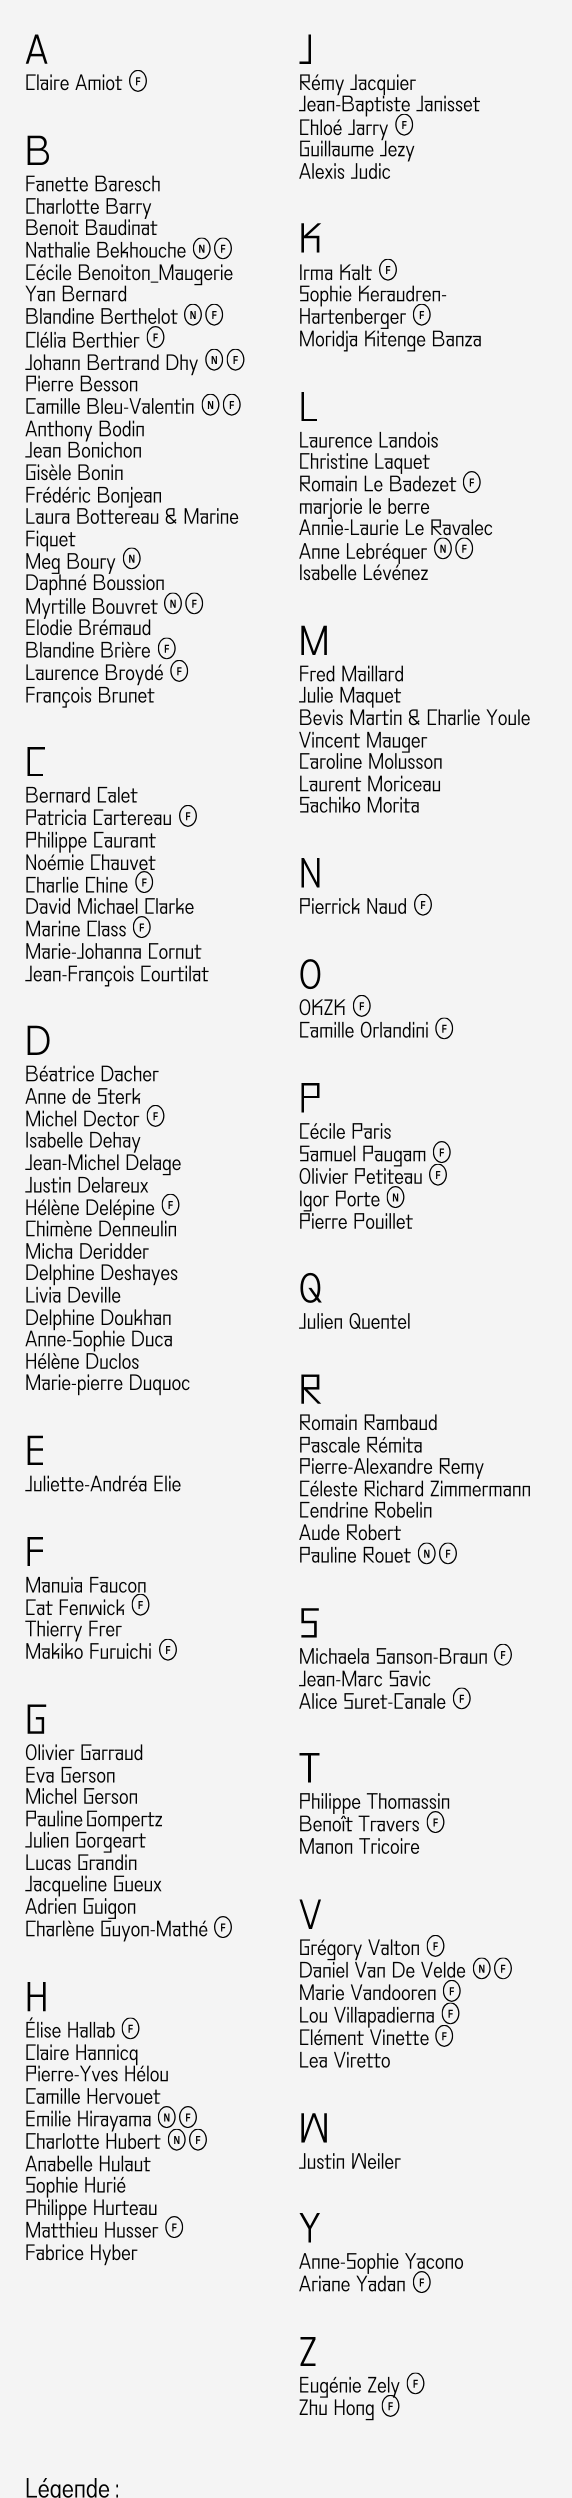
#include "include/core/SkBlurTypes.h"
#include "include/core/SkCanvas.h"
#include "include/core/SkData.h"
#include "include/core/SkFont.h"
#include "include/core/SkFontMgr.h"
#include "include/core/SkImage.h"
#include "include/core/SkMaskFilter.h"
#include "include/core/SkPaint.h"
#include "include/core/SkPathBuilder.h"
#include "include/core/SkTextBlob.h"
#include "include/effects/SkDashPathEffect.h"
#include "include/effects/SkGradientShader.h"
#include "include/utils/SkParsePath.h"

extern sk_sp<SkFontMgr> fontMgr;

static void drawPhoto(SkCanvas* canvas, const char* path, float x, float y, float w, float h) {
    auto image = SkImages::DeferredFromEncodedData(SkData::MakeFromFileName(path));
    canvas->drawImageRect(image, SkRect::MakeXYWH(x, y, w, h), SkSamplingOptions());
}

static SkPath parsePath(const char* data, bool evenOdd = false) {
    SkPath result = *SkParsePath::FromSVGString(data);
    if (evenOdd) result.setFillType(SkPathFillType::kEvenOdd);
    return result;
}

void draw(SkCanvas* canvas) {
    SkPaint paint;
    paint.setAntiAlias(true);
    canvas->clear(0xFFF4F4F4);
    drawPhoto(canvas, "assets/img1.png", 25, 34, 23, 30);
    drawPhoto(canvas, "assets/img2.png", 26, 74, 97, 17);
    drawPhoto(canvas, "assets/img3.png", 129, 70, 18, 22);
    paint.setColor(0xFF000000);
    canvas->drawPath(parsePath("M299.5 61.5H308.5V34.5H311V64H299.5Z"), paint);
    drawPhoto(canvas, "assets/img4.png", 300, 74, 116, 22);
    drawPhoto(canvas, "assets/img5.png", 299, 95, 181, 22);
    drawPhoto(canvas, "assets/img6.png", 300, 119, 88, 22);
    drawPhoto(canvas, "assets/img7.png", 395, 113, 19, 23);
    drawPhoto(canvas, "assets/img8.png", 300, 140, 115, 22);
    drawPhoto(canvas, "assets/img9.png", 299, 163, 92, 16);
    drawPhoto(canvas, "assets/img10.png", 27, 135, 22, 30);
    drawPhoto(canvas, "assets/img11.png", 26, 175, 134, 17);
    drawPhoto(canvas, "assets/img12.png", 26, 198, 126, 21);
    drawPhoto(canvas, "assets/img13.png", 26, 219, 132, 17);
    drawPhoto(canvas, "assets/img14.png", 26, 241, 160, 17);
    drawPhoto(canvas, "assets/img15.png", 192, 237, 19, 23);
    drawPhoto(canvas, "assets/img16.png", 214, 237, 18, 23);
    drawPhoto(canvas, "assets/img17.png", 26, 264, 207, 22);
    drawPhoto(canvas, "assets/img18.png", 25, 285, 102, 17);
    drawPhoto(canvas, "assets/img19.png", 26, 308, 152, 16);
    drawPhoto(canvas, "assets/img20.png", 184, 303, 18, 23);
    drawPhoto(canvas, "assets/img7.png", 205, 303, 19, 23);
    drawPhoto(canvas, "assets/img21.png", 26, 331, 114, 17);
    drawPhoto(canvas, "assets/img22.png", 146, 326, 19, 23);
    drawPhoto(canvas, "assets/img23.png", 25, 354, 173, 22);
    drawPhoto(canvas, "assets/img24.png", 205, 348, 19, 23);
    drawPhoto(canvas, "assets/img25.png", 226, 348, 19, 23);
    drawPhoto(canvas, "assets/img26.png", 26, 375, 112, 17);
    drawPhoto(canvas, "assets/img27.png", 26, 398, 168, 16);
    drawPhoto(canvas, "assets/img28.png", 201, 393, 19, 23);
    drawPhoto(canvas, "assets/img29.png", 222, 393, 19, 23);
    drawPhoto(canvas, "assets/img30.png", 25, 420, 119, 22);
    drawPhoto(canvas, "assets/img31.png", 25, 441, 116, 17);
    drawPhoto(canvas, "assets/img32.png", 26, 464, 97, 17);
    drawPhoto(canvas, "assets/img33.png", 26, 486, 135, 22);
    drawPhoto(canvas, "assets/img34.png", 26, 508, 213, 16);
    drawPhoto(canvas, "assets/img35.png", 26, 530, 50, 22);
    drawPhoto(canvas, "assets/img36.png", 26, 553, 90, 21);
    drawPhoto(canvas, "assets/img15.png", 122, 547, 19, 23);
    drawPhoto(canvas, "assets/img37.png", 26, 574, 138, 22);
    drawPhoto(canvas, "assets/img38.png", 26, 598, 132, 21);
    drawPhoto(canvas, "assets/img39.png", 164, 592, 18, 23);
    drawPhoto(canvas, "assets/img40.png", 185, 592, 19, 23);
    drawPhoto(canvas, "assets/img41.png", 26, 619, 125, 17);
    drawPhoto(canvas, "assets/img42.png", 26, 641, 124, 17);
    drawPhoto(canvas, "assets/img43.png", 157, 637, 19, 23);
    drawPhoto(canvas, "assets/img44.png", 26, 664, 137, 22);
    drawPhoto(canvas, "assets/img45.png", 170, 660, 19, 22);
    drawPhoto(canvas, "assets/img46.png", 26, 686, 129, 22);
    drawPhoto(canvas, "assets/img47.png", 301, 223, 21, 30);
    drawPhoto(canvas, "assets/img48.png", 300, 264, 72, 17);
    drawPhoto(canvas, "assets/img49.png", 379, 258, 18, 23);
    drawPhoto(canvas, "assets/img50.png", 300, 285, 147, 22);
    drawPhoto(canvas, "assets/img51.png", 300, 308, 106, 21);
    drawPhoto(canvas, "assets/img29.png", 412, 303, 19, 23);
    drawPhoto(canvas, "assets/img52.png", 300, 330, 181, 22);
    canvas->drawPath(parsePath("M304 392V419H317V421H301.5V392Z"), paint);
    drawPhoto(canvas, "assets/img53.png", 300, 431, 138, 17);
    drawPhoto(canvas, "assets/img54.png", 300, 453, 130, 21);
    drawPhoto(canvas, "assets/img55.png", 300, 475, 157, 17);
    drawPhoto(canvas, "assets/img56.png", 462, 471, 19, 23);
    drawPhoto(canvas, "assets/img57.png", 299, 498, 131, 21);
    drawPhoto(canvas, "assets/img58.png", 299, 519, 194, 17);
    drawPhoto(canvas, "assets/img59.png", 299, 543, 128, 21);
    drawPhoto(canvas, "assets/img39.png", 434, 537, 18, 23);
    drawPhoto(canvas, "assets/img40.png", 455, 537, 19, 23);
    drawPhoto(canvas, "assets/img60.png", 300, 564, 128, 17);
    drawPhoto(canvas, "assets/img61.png", 301, 625, 26, 30);
    drawPhoto(canvas, "assets/img62.png", 300, 665, 103, 17);
    drawPhoto(canvas, "assets/img63.png", 299, 686, 103, 22);
    drawPhoto(canvas, "assets/img64.png", 300, 709, 230, 17);
    drawPhoto(canvas, "assets/img65.png", 299, 731, 129, 22);
    drawPhoto(canvas, "assets/img66.png", 300, 753, 142, 16);
    drawPhoto(canvas, "assets/img67.png", 300, 775, 141, 17);
    drawPhoto(canvas, "assets/img68.png", 300, 796, 119, 17);
    canvas->drawPath(parsePath("M30 774H43V776H27.5V747H45V749.5H30Z"), paint);
    drawPhoto(canvas, "assets/img69.png", 26, 786, 112, 17);
    drawPhoto(canvas, "assets/img70.png", 26, 809, 145, 17);
    drawPhoto(canvas, "assets/img3.png", 179, 805, 18, 22);
    drawPhoto(canvas, "assets/img71.png", 26, 831, 130, 22);
    drawPhoto(canvas, "assets/img72.png", 26, 854, 130, 17);
    drawPhoto(canvas, "assets/img73.png", 26, 876, 102, 17);
    drawPhoto(canvas, "assets/img74.png", 135, 871, 19, 22);
    drawPhoto(canvas, "assets/img75.png", 26, 898, 168, 16);
    drawPhoto(canvas, "assets/img76.png", 26, 920, 100, 17);
    drawPhoto(canvas, "assets/img77.png", 132, 916, 19, 23);
    drawPhoto(canvas, "assets/img78.png", 26, 943, 176, 16);
    drawPhoto(canvas, "assets/img79.png", 25, 965, 184, 22);
    canvas->drawPath(parsePath("M317 882.5V858H319.5V887.5H317L304 863V887.5H301.5V858H304Z"), paint);
    drawPhoto(canvas, "assets/img80.png", 300, 898, 106, 16);
    drawPhoto(canvas, "assets/img49.png", 414, 893, 18, 23);
    drawPhoto(canvas, "assets/img81.png", 300, 959, 21, 31);
    drawPhoto(canvas, "assets/img82.png", 299, 999, 47, 17);
    drawPhoto(canvas, "assets/img83.png", 352, 995, 19, 22);
    drawPhoto(canvas, "assets/img84.png", 300, 1021, 128, 17);
    drawPhoto(canvas, "assets/img40.png", 435, 1017, 19, 23);
    drawPhoto(canvas, "assets/img85.png", 27, 1025, 23, 30);
    drawPhoto(canvas, "assets/img86.png", 26, 1065, 133, 17);
    drawPhoto(canvas, "assets/img87.png", 25, 1088, 116, 16);
    drawPhoto(canvas, "assets/img88.png", 26, 1110, 114, 17);
    drawPhoto(canvas, "assets/img89.png", 146, 1105, 19, 22);
    drawPhoto(canvas, "assets/img90.png", 26, 1131, 115, 22);
    drawPhoto(canvas, "assets/img91.png", 25, 1154, 156, 22);
    drawPhoto(canvas, "assets/img92.png", 25, 1176, 124, 17);
    drawPhoto(canvas, "assets/img93.png", 26, 1199, 129, 22);
    drawPhoto(canvas, "assets/img25.png", 161, 1193, 19, 23);
    drawPhoto(canvas, "assets/img94.png", 26, 1220, 150, 17);
    drawPhoto(canvas, "assets/img95.png", 26, 1243, 123, 16);
    drawPhoto(canvas, "assets/img96.png", 26, 1264, 152, 22);
    drawPhoto(canvas, "assets/img97.png", 26, 1286, 95, 17);
    drawPhoto(canvas, "assets/img98.png", 26, 1309, 145, 22);
    drawPhoto(canvas, "assets/img99.png", 25, 1330, 147, 22);
    drawPhoto(canvas, "assets/img100.png", 26, 1353, 113, 16);
    drawPhoto(canvas, "assets/img101.png", 26, 1374, 164, 22);
    canvas->drawPath(parsePath("M319.5 1083V1098H304V1112.5H301.5V1083ZM317 1096V1085.5H304V1096Z"), paint);
    drawPhoto(canvas, "assets/img102.png", 300, 1123, 91, 16);
    drawPhoto(canvas, "assets/img103.png", 300, 1145, 126, 22);
    drawPhoto(canvas, "assets/img77.png", 432, 1141, 19, 23);
    drawPhoto(canvas, "assets/img104.png", 299, 1168, 123, 16);
    drawPhoto(canvas, "assets/img105.png", 429, 1163, 18, 23);
    drawPhoto(canvas, "assets/img106.png", 300, 1190, 80, 22);
    drawPhoto(canvas, "assets/img107.png", 386, 1186, 19, 23);
    drawPhoto(canvas, "assets/img108.png", 300, 1213, 113, 16);
    drawPhoto(canvas, "assets/img109.png", 300, 1272, 22, 31);
    drawPhoto(canvas, "assets/img110.png", 299, 1313, 111, 16);
    drawPhoto(canvas, "assets/img111.png", 27, 1435, 16, 30);
    drawPhoto(canvas, "assets/img112.png", 25, 1475, 156, 17);
    drawPhoto(canvas, "assets/img113.png", 301, 1374, 21, 30);
    drawPhoto(canvas, "assets/img114.png", 300, 1414, 137, 17);
    drawPhoto(canvas, "assets/img115.png", 300, 1436, 122, 17);
    drawPhoto(canvas, "assets/img116.png", 300, 1458, 184, 21);
    drawPhoto(canvas, "assets/img117.png", 300, 1480, 230, 17);
    drawPhoto(canvas, "assets/img118.png", 300, 1501, 132, 17);
    drawPhoto(canvas, "assets/img119.png", 299, 1524, 102, 17);
    drawPhoto(canvas, "assets/img120.png", 300, 1546, 111, 17);
    drawPhoto(canvas, "assets/img15.png", 417, 1542, 19, 23);
    drawPhoto(canvas, "assets/img16.png", 439, 1542, 18, 23);
    canvas->drawPath(parsePath("M43 1537V1539.5H30V1549.5H43V1552H30V1566H27.5V1537Z"), paint);
    drawPhoto(canvas, "assets/img121.png", 26, 1576, 120, 17);
    drawPhoto(canvas, "assets/img122.png", 26, 1599, 99, 17);
    drawPhoto(canvas, "assets/img25.png", 131, 1593, 19, 23);
    drawPhoto(canvas, "assets/img123.png", 25, 1620, 97, 22);
    drawPhoto(canvas, "assets/img124.png", 26, 1643, 125, 16);
    drawPhoto(canvas, "assets/img49.png", 159, 1638, 18, 23);
    drawPhoto(canvas, "assets/img125.png", 301, 1608, 18, 30);
    drawPhoto(canvas, "assets/img126.png", 300, 1648, 187, 16);
    drawPhoto(canvas, "assets/img127.png", 494, 1643, 18, 23);
    drawPhoto(canvas, "assets/img128.png", 299, 1670, 132, 17);
    drawPhoto(canvas, "assets/img129.png", 299, 1693, 147, 16);
    drawPhoto(canvas, "assets/img43.png", 452, 1687, 19, 23);
    drawPhoto(canvas, "assets/img130.png", 27, 1704, 20, 30);
    drawPhoto(canvas, "assets/img131.png", 25, 1744, 118, 17);
    drawPhoto(canvas, "assets/img132.png", 26, 1766, 89, 17);
    drawPhoto(canvas, "assets/img133.png", 26, 1788, 111, 16);
    drawPhoto(canvas, "assets/img134.png", 26, 1810, 136, 22);
    drawPhoto(canvas, "assets/img135.png", 25, 1831, 121, 22);
    drawPhoto(canvas, "assets/img136.png", 26, 1854, 111, 17);
    drawPhoto(canvas, "assets/img137.png", 25, 1875, 137, 22);
    drawPhoto(canvas, "assets/img138.png", 25, 1898, 111, 21);
    drawPhoto(canvas, "assets/img139.png", 26, 1920, 182, 22);
    drawPhoto(canvas, "assets/img140.png", 214, 1916, 18, 22);
    canvas->drawPath(parsePath("M319.5 1755.5H311V1782.5H308V1755.5H299.5V1753H319.5Z"), paint);
    drawPhoto(canvas, "assets/img141.png", 300, 1793, 150, 21);
    drawPhoto(canvas, "assets/img142.png", 300, 1815, 120, 17);
    drawPhoto(canvas, "assets/img22.png", 426, 1811, 19, 23);
    drawPhoto(canvas, "assets/img143.png", 300, 1838, 120, 16);
    drawPhoto(canvas, "assets/img144.png", 27, 1982, 19, 30);
    drawPhoto(canvas, "assets/img145.png", 26, 2017, 89, 21);
    drawPhoto(canvas, "assets/img146.png", 121, 2017, 19, 23);
    drawPhoto(canvas, "assets/img147.png", 26, 2044, 112, 22);
    drawPhoto(canvas, "assets/img148.png", 26, 2065, 142, 17);
    drawPhoto(canvas, "assets/img149.png", 26, 2088, 135, 16);
    drawPhoto(canvas, "assets/img150.png", 26, 2110, 125, 22);
    drawPhoto(canvas, "assets/img151.png", 157, 2106, 19, 23);
    drawPhoto(canvas, "assets/img140.png", 179, 2106, 18, 22);
    drawPhoto(canvas, "assets/img152.png", 26, 2133, 135, 16);
    drawPhoto(canvas, "assets/img153.png", 167, 2128, 19, 23);
    drawPhoto(canvas, "assets/img49.png", 189, 2128, 18, 23);
    drawPhoto(canvas, "assets/img154.png", 25, 2155, 126, 17);
    drawPhoto(canvas, "assets/img155.png", 26, 2176, 100, 22);
    drawPhoto(canvas, "assets/img156.png", 26, 2199, 131, 22);
    drawPhoto(canvas, "assets/img157.png", 26, 2221, 133, 17);
    drawPhoto(canvas, "assets/img74.png", 165, 2216, 19, 22);
    drawPhoto(canvas, "assets/img158.png", 26, 2244, 112, 22);
    canvas->drawPath(parsePath("M302 1899.5L310.5 1925.5L318.5 1899.5H321L312 1929H309L299.5 1899.5Z"), paint);
    drawPhoto(canvas, "assets/img159.png", 300, 1939, 119, 22);
    drawPhoto(canvas, "assets/img89.png", 426, 1935, 19, 22);
    drawPhoto(canvas, "assets/img160.png", 300, 1961, 166, 17);
    drawPhoto(canvas, "assets/img15.png", 472, 1957, 19, 23);
    drawPhoto(canvas, "assets/img161.png", 494, 1957, 18, 23);
    drawPhoto(canvas, "assets/img162.png", 300, 1984, 136, 17);
    drawPhoto(canvas, "assets/img83.png", 442, 1980, 19, 22);
    drawPhoto(canvas, "assets/img163.png", 300, 2006, 134, 22);
    drawPhoto(canvas, "assets/img164.png", 441, 2002, 19, 23);
    drawPhoto(canvas, "assets/img165.png", 300, 2029, 129, 17);
    drawPhoto(canvas, "assets/img45.png", 435, 2025, 19, 22);
    drawPhoto(canvas, "assets/img166.png", 300, 2051, 90, 17);
    drawPhoto(canvas, "assets/img167.png", 301, 2113, 26, 30);
    drawPhoto(canvas, "assets/img168.png", 299, 2153, 102, 16);
    canvas->drawPath(parsePath("M308.5 2229L299.5 2213H302.5L310 2226L317 2213H320L311 2229V2242.5H308.5Z"), paint);
    drawPhoto(canvas, "assets/img169.png", 299, 2253, 165, 21);
    drawPhoto(canvas, "assets/img170.png", 299, 2275, 106, 17);
    drawPhoto(canvas, "assets/img77.png", 412, 2271, 19, 23);
    canvas->drawPath(parsePath("M315.5 2363.5V2366H300.5V2364L312.5 2339.5H300.5V2337H315.5V2339.5L303.5 2363.5Z"), paint);
    drawPhoto(canvas, "assets/img171.png", 300, 2376, 100, 22);
    drawPhoto(canvas, "assets/img146.png", 406, 2372, 19, 23);
    drawPhoto(canvas, "assets/img172.png", 299, 2399, 75, 22);
    drawPhoto(canvas, "assets/img173.png", 381, 2395, 19, 22);
    drawPhoto(canvas, "assets/img174.png", 26, 2478, 92, 20);
}
